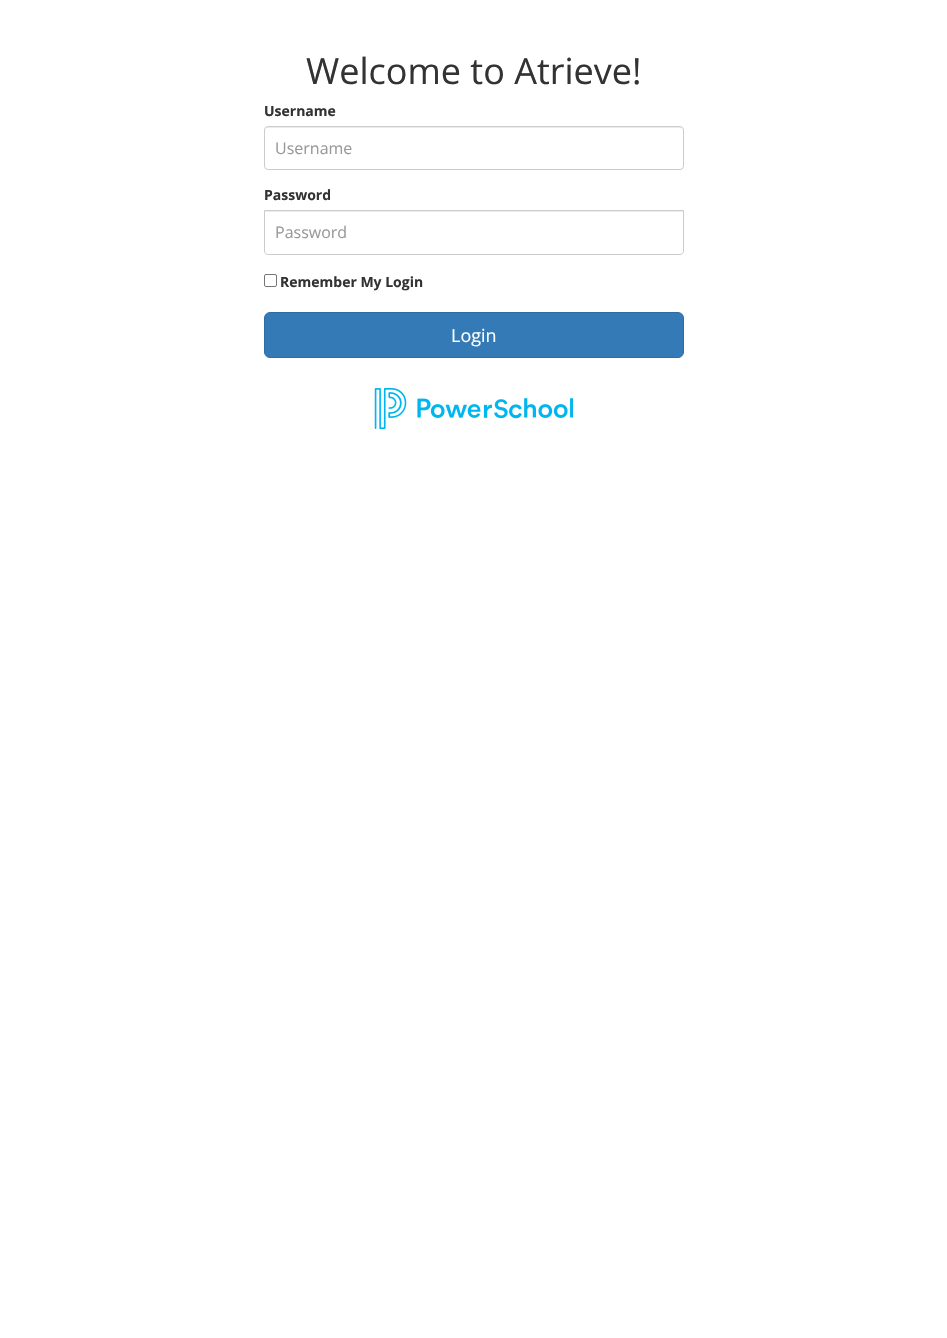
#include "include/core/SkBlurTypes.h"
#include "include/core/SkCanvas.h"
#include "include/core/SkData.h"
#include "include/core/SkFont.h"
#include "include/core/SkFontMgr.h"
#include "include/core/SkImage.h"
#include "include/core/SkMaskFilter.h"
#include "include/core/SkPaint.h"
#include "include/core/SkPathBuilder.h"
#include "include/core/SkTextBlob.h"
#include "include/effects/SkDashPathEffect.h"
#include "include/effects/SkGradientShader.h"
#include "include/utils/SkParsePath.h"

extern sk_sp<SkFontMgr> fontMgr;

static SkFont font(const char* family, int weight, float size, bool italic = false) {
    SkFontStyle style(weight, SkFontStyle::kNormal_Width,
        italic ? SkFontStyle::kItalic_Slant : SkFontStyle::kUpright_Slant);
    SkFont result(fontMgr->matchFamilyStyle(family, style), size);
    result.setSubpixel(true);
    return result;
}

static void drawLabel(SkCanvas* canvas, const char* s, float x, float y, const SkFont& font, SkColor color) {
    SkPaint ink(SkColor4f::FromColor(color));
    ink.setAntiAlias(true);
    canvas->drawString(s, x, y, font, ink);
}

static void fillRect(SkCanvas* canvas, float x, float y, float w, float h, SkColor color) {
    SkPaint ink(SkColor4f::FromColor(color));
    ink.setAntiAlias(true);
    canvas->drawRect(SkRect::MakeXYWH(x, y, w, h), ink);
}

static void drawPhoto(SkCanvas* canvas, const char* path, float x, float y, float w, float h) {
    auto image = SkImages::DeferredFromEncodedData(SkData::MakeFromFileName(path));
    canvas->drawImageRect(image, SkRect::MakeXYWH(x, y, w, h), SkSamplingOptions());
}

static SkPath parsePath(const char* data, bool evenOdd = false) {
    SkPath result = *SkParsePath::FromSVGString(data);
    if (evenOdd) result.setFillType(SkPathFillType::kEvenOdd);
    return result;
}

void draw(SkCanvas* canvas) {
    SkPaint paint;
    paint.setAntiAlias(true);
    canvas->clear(0xFFFFFFFF);
    SkFont font1 = font("Open Sans", 400, 36);
    drawLabel(canvas, "Welcome to Atrieve!", 306, 84, font1, 0xFF333333);
    SkFont font2 = font("Open Sans", 700, 14);
    drawLabel(canvas, "Username", 264, 116, font2, 0xFF333333);
    paint.setColor(0xFFECECEC);
    canvas->drawPath(parsePath("M268 128H680C682 128 683 129 683 131C683 129 682 127 680 127H268C266 127 265 129 265 131C265 129 266 128 268 128Z"), paint);
    paint.setStroke(true);
    paint.setStrokeWidth(1);
    paint.setColor(0xFFCCCCCC);
    canvas->drawRoundRect(SkRect::MakeXYWH(264.5f, 126.5f, 419, 43), 3.5f, 3.5f, paint);
    SkFont font3 = font("Open Sans", 400, 16);
    drawLabel(canvas, "Username", 275, 154, font3, 0xFF999999);
    drawLabel(canvas, "Password", 264, 200, font2, 0xFF333333);
    fillRect(canvas, 265, 211, 418, 1, 0xFFECECEC);
    canvas->drawPath(parsePath("M264.5 210.5H683.5V251C683.5 253 682 254.5 680 254.5H268C266 254.5 264.5 253 264.5 251Z"), paint);
    drawLabel(canvas, "Password", 275, 238, font3, 0xFF999999);
    paint.setColor(0xFF767676);
    canvas->drawRoundRect(SkRect::MakeXYWH(264.5f, 274.5f, 12, 12), 1.5f, 1.5f, paint);
    drawLabel(canvas, "Remember My Login", 280, 287, font2, 0xFF333333);
    paint.setStroke(false);
    paint.setColor(0xFF337AB7);
    canvas->drawRoundRect(SkRect::MakeXYWH(264.5f, 312.5f, 419, 45), 5.5f, 5.5f, paint);
    paint.setStroke(true);
    paint.setColor(0xFF2E6DA4);
    canvas->drawRoundRect(SkRect::MakeXYWH(264.5f, 312.5f, 419, 45), 5.5f, 5.5f, paint);
    SkFont font4 = font("Open Sans", 400, 18);
    drawLabel(canvas, "Login", 451, 342, font4, 0xFFFFFFFF);
    drawPhoto(canvas, "assets/img1.png", 374, 388, 199, 41);
}
